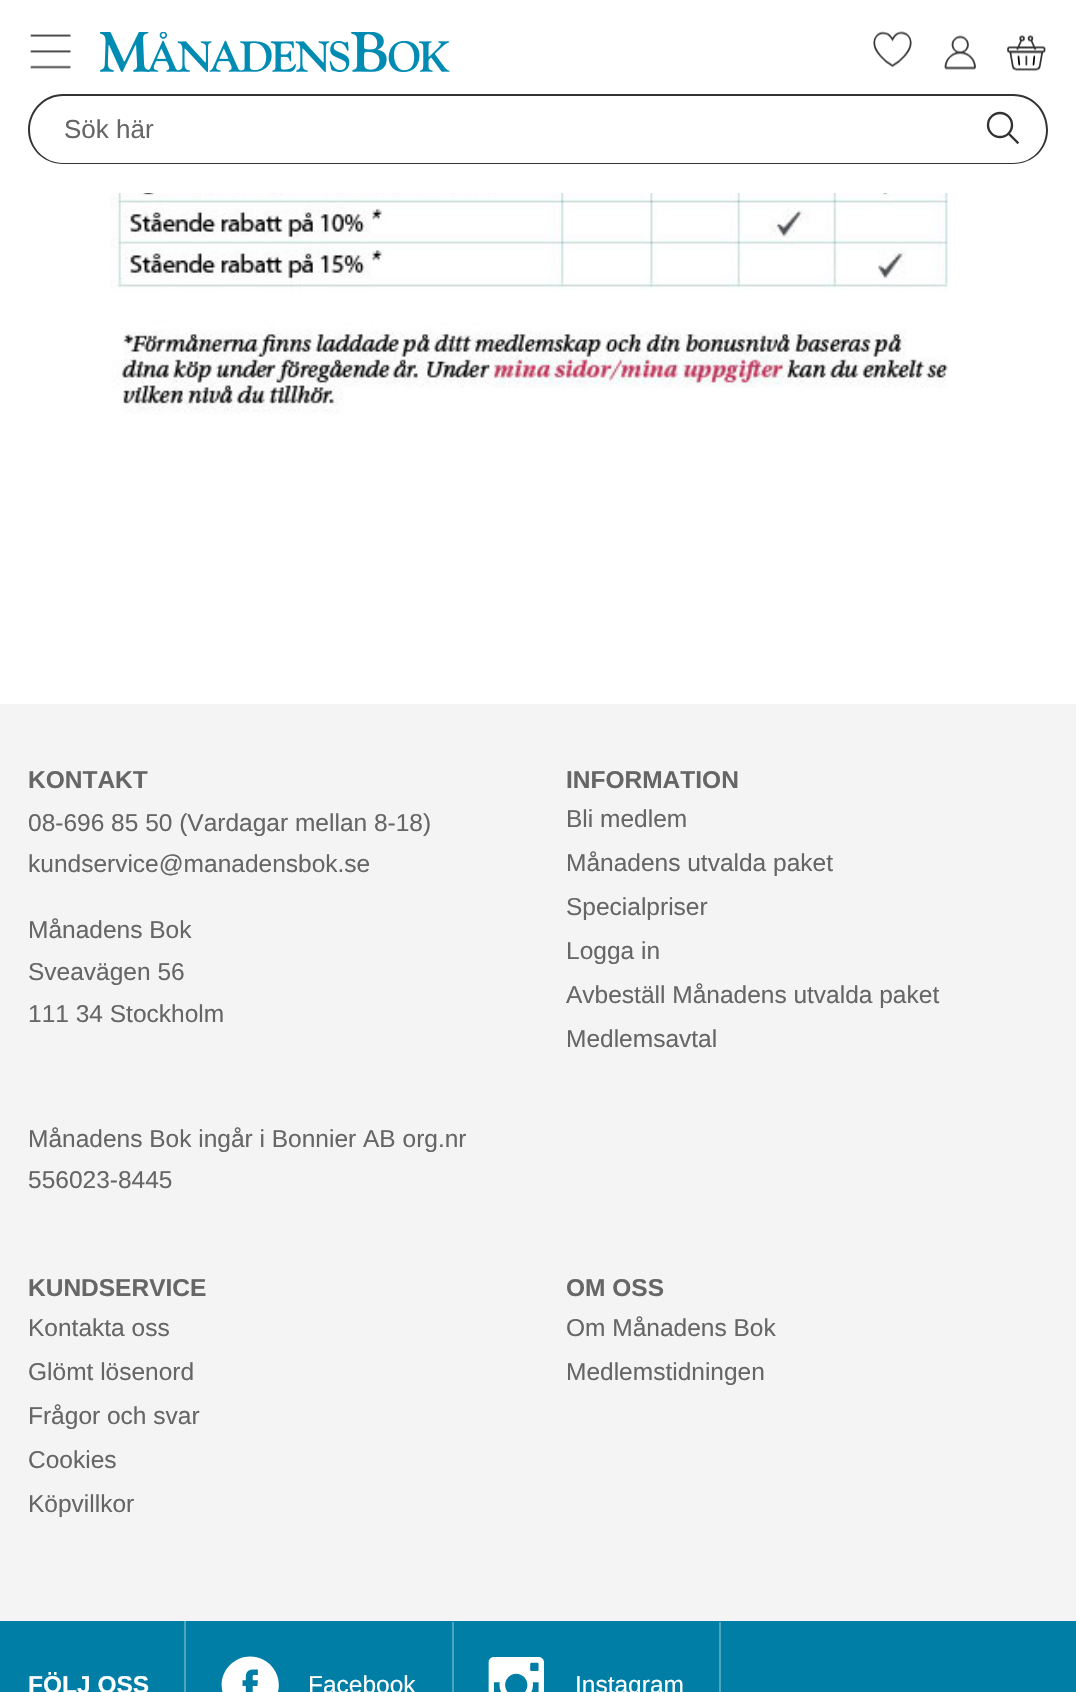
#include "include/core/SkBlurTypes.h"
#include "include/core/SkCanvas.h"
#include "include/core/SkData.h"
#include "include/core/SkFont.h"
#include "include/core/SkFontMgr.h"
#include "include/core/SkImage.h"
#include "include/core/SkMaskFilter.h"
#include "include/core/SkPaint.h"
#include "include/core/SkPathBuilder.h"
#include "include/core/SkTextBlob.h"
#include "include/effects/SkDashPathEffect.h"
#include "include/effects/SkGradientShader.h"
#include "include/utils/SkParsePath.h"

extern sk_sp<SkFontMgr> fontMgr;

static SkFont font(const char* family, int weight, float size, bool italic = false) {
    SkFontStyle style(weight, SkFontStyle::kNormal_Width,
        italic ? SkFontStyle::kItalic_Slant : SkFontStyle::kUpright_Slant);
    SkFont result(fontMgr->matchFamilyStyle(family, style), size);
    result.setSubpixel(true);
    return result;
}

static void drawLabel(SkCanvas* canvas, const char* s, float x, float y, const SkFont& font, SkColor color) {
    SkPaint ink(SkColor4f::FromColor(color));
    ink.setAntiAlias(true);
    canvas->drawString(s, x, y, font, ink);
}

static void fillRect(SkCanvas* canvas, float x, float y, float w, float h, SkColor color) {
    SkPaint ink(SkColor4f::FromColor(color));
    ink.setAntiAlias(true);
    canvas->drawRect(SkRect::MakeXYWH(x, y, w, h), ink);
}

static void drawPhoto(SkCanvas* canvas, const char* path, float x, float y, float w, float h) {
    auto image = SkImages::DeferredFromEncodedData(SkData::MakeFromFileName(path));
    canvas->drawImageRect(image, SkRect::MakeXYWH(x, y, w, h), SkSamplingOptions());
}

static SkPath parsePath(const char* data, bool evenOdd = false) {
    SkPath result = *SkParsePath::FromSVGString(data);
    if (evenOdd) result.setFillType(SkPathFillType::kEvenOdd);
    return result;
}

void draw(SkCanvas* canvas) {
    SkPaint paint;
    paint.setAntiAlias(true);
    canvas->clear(0xFFFFFFFF);
    drawPhoto(canvas, "assets/img1.png", 30, 34, 41, 35);
    drawPhoto(canvas, "assets/img2.png", 100, 32, 350, 40);
    drawPhoto(canvas, "assets/img3.png", 873, 31, 39, 37);
    drawPhoto(canvas, "assets/img4.png", 944, 35, 32, 35);
    drawPhoto(canvas, "assets/img5.png", 1007, 35, 39, 36);
    paint.setColor(0xFF333333);
    canvas->drawPath(parsePath("M63 94H973V164H63C44 164 28 149 28 130C28 110 44 94 63 94ZM63 96H973V163H63C45 163 30 148 30 130C30 111 45 96 63 96Z", true), paint);
    SkFont font1 = font("Liberation Sans", 400, 26);
    drawLabel(canvas, "Sök här", 64, 138, font1, 0xFF666666);
    canvas->drawPath(parsePath("M973 94H1013C1033 94 1048 110 1048 130C1048 149 1033 164 1013 164H973ZM973 96H1013C1032 96 1046 111 1046 130C1046 148 1032 163 1013 163H973Z", true), paint);
    paint.setStroke(true);
    paint.setStrokeWidth(2.4f);
    paint.setStrokeCap(SkPaint::kSquare_Cap);
    canvas->drawPath(parsePath("M1017.5 142.5L996 121"), paint);
    paint.setStroke(false);
    paint.setColor(0xFFFFFFFF);
    canvas->drawCircle(1000, 125, 12, paint);
    paint.setStroke(true);
    paint.setStrokeCap(SkPaint::kButt_Cap);
    paint.setColor(0xFF333333);
    canvas->drawCircle(1000, 125, 12, paint);
    drawPhoto(canvas, "assets/img6.png", 110, 193, 838, 222);
    fillRect(canvas, 0, 704, 1076, 917, 0xFFF4F4F4);
    SkFont font2 = font("Liberation Sans", 700, 24.5f);
    drawLabel(canvas, "KONTAKT", 28, 788, font2, 0xFF666666);
    SkFont font3 = font("Liberation Sans", 400, 24.5f);
    drawLabel(canvas, "08-696 85 50 (Vardagar mellan 8-18)", 28, 831, font3, 0xFF666666);
    drawLabel(canvas, "kundservice@manadensbok.se", 28, 872, font3, 0xFF666666);
    drawLabel(canvas, "Månadens Bok", 28, 938, font3, 0xFF666666);
    drawLabel(canvas, "Sveavägen 56", 28, 980, font3, 0xFF666666);
    drawLabel(canvas, "111 34 Stockholm", 28, 1022, font3, 0xFF666666);
    drawLabel(canvas, "Månadens Bok ingår i Bonnier AB org.nr", 28, 1147, font3, 0xFF666666);
    drawLabel(canvas, "556023-8445", 28, 1188, font3, 0xFF666666);
    drawLabel(canvas, "INFORMATION", 566, 788, font2, 0xFF666666);
    drawLabel(canvas, "Bli medlem", 566, 827, font3, 0xFF666666);
    drawLabel(canvas, "Månadens utvalda paket", 566, 871, font3, 0xFF666666);
    drawLabel(canvas, "Specialpriser", 566, 915, font3, 0xFF666666);
    drawLabel(canvas, "Logga in", 566, 959, font3, 0xFF666666);
    drawLabel(canvas, "Avbeställ Månadens utvalda paket", 566, 1003, font3, 0xFF666666);
    drawLabel(canvas, "Medlemsavtal", 566, 1047, font3, 0xFF666666);
    drawLabel(canvas, "KUNDSERVICE", 28, 1296, font2, 0xFF666666);
    drawLabel(canvas, "Kontakta oss", 28, 1336, font3, 0xFF666666);
    drawLabel(canvas, "Glömt lösenord", 28, 1380, font3, 0xFF666666);
    drawLabel(canvas, "Frågor och svar", 28, 1424, font3, 0xFF666666);
    drawLabel(canvas, "Cookies", 28, 1468, font3, 0xFF666666);
    drawLabel(canvas, "Köpvillkor", 28, 1512, font3, 0xFF666666);
    drawLabel(canvas, "OM OSS", 566, 1296, font2, 0xFF666666);
    drawLabel(canvas, "Om Månadens Bok", 566, 1336, font3, 0xFF666666);
    drawLabel(canvas, "Medlemstidningen", 566, 1380, font3, 0xFF666666);
    fillRect(canvas, 0, 1621, 1076, 71, 0xFF007EA5);
    drawLabel(canvas, "FÖLJ OSS", 28, 1693, font2, 0xFFFFFFFF);
    fillRect(canvas, 184, 1621, 2, 71, 0xFF4DA5C0);
    drawPhoto(canvas, "assets/img7.png", 221, 1656, 58, 36);
    drawLabel(canvas, "Facebook", 308, 1693, font3, 0xFFFFFFFF);
    fillRect(canvas, 719, 1622, 2, 70, 0xFF4DA5C0);
    fillRect(canvas, 452, 1622, 2, 70, 0xFF4DA5C0);
    drawPhoto(canvas, "assets/img8.png", 488, 1657, 56, 35);
    drawLabel(canvas, "Instagram", 575, 1693, font3, 0xFFFFFFFF);
}
